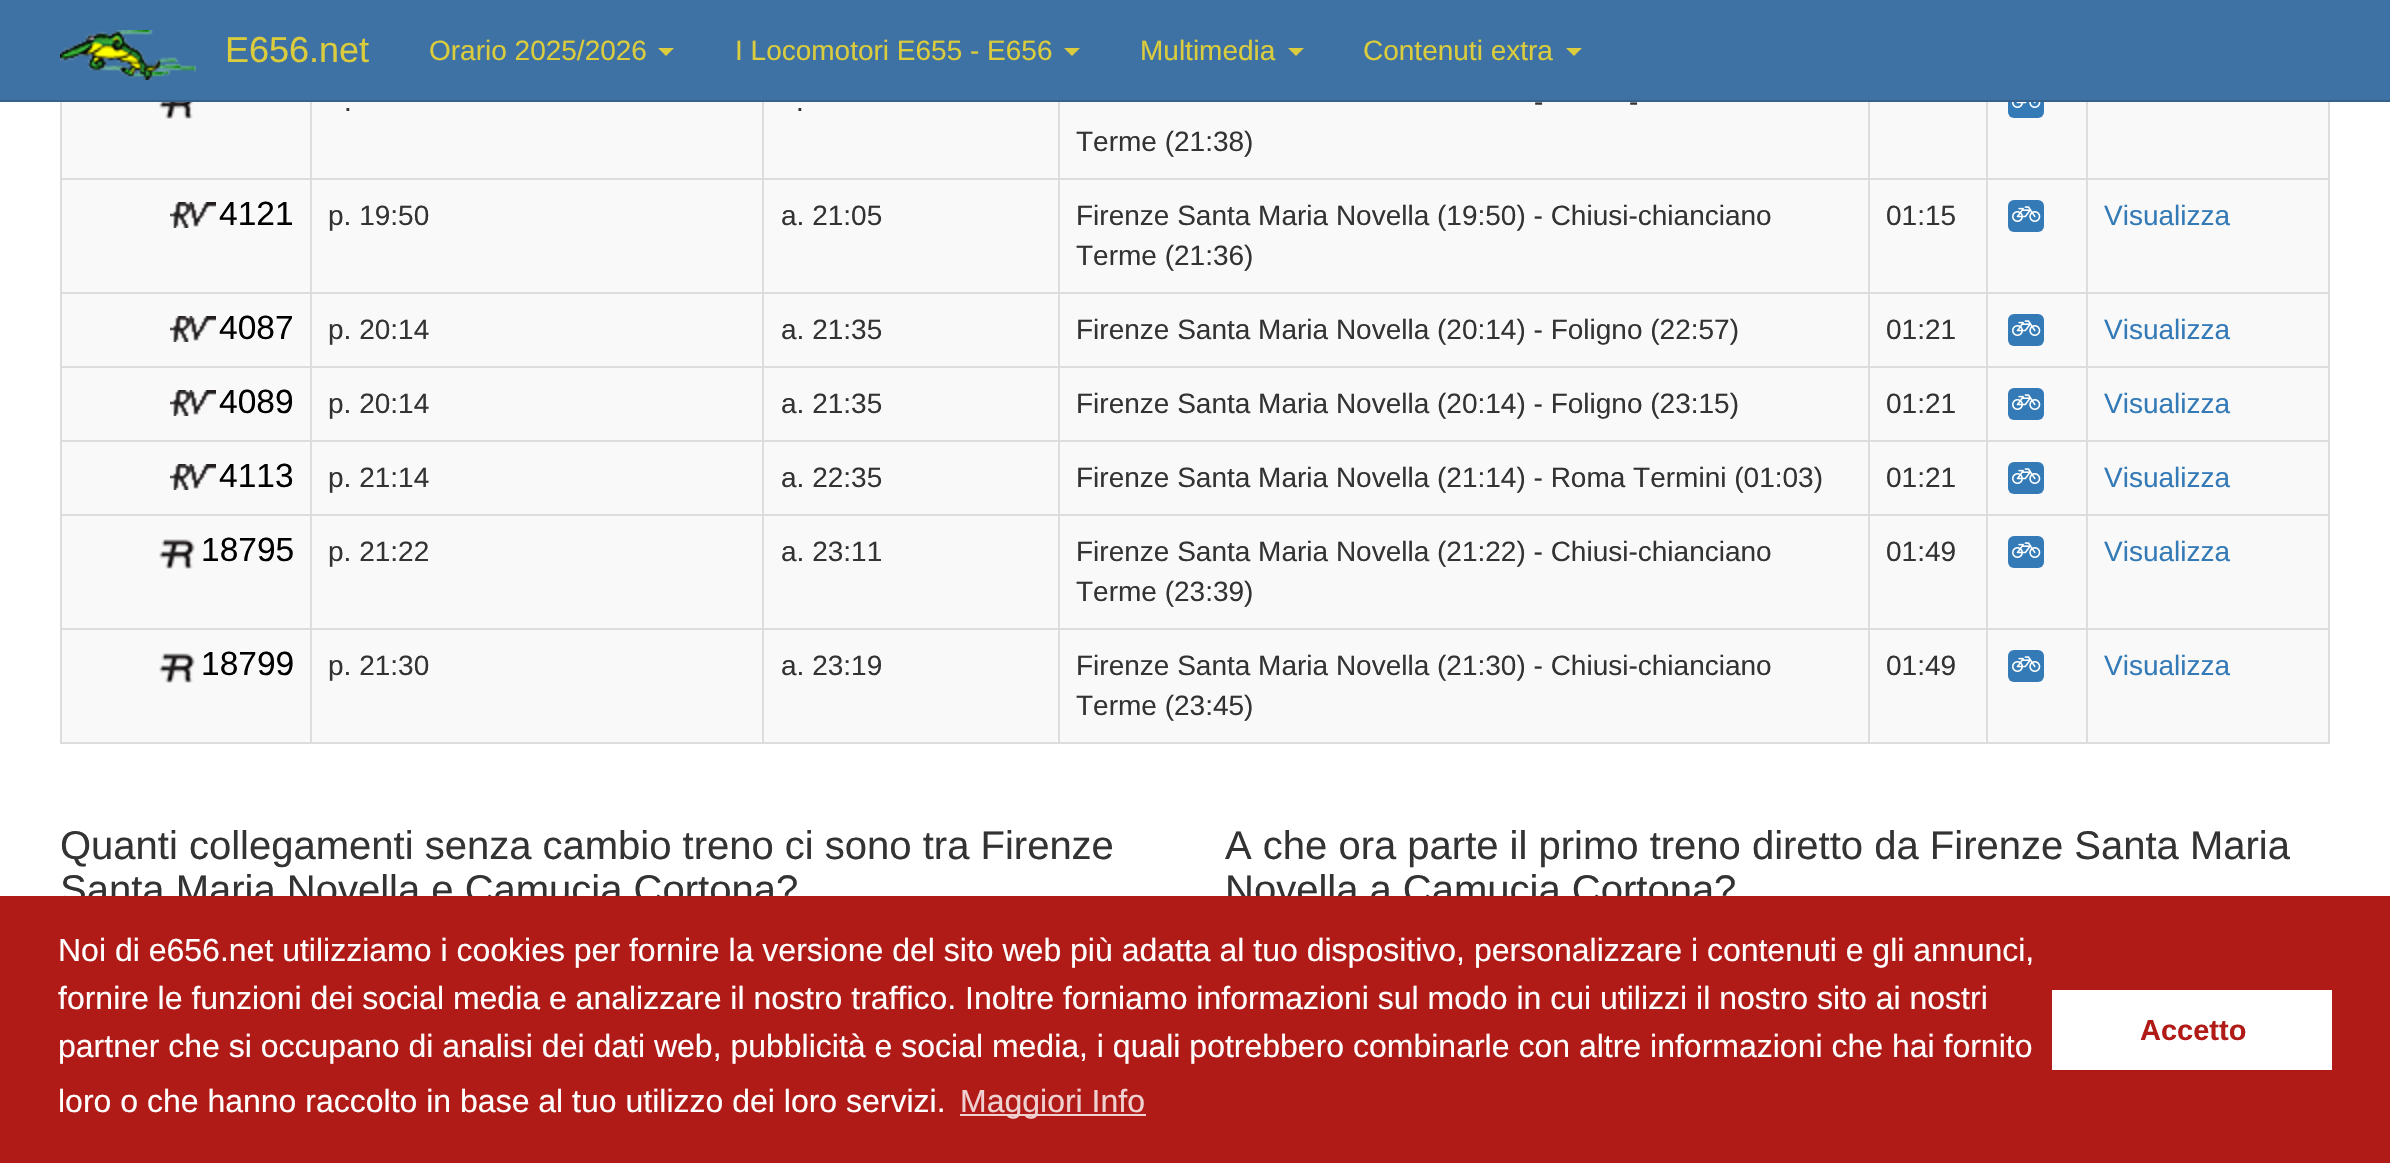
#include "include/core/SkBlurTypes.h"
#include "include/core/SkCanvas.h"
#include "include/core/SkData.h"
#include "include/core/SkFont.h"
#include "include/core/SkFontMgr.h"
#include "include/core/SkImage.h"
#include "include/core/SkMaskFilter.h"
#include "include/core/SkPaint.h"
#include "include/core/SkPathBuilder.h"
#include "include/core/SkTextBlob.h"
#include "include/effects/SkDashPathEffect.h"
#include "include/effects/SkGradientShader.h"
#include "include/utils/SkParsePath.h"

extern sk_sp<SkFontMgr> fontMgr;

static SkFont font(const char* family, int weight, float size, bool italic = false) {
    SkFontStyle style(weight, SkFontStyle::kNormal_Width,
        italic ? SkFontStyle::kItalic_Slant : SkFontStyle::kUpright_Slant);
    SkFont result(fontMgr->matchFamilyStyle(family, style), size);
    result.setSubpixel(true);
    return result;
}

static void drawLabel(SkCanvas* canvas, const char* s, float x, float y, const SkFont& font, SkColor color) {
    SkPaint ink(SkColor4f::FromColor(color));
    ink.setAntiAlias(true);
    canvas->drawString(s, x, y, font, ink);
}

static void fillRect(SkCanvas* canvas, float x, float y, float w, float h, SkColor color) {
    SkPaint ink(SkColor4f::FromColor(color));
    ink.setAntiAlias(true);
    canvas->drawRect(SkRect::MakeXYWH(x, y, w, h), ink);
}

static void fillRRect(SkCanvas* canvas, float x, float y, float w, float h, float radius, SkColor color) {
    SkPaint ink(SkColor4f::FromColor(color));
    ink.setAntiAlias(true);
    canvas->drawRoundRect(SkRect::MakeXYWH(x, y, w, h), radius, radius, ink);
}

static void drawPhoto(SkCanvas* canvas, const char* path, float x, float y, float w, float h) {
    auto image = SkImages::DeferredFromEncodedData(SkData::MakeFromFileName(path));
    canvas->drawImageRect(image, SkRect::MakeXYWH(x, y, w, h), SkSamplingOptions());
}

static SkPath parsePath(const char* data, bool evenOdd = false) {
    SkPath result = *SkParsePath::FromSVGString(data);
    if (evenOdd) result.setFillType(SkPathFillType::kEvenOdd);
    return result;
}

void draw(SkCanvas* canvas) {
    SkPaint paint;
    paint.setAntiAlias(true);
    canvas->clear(0xFFFFFFFF);
    fillRect(canvas, 62, 102, 2266, 76, 0xFFF9F9F9);
    fillRRect(canvas, 2008, 86, 36, 32, 6, 0xFF337AB7);
    fillRect(canvas, 0, 0, 2390, 100, 0xFF3E72A4);
    fillRect(canvas, 0, 100, 2390, 2, 0xFF35618C);
    drawPhoto(canvas, "assets/img1.png", 60, 30, 136, 50);
    SkFont font1 = font("Liberation Sans", 400, 36);
    drawLabel(canvas, "E656.net", 225, 62, font1, 0xFFDBCC3D);
    SkFont font2 = font("Liberation Sans", 400, 28);
    drawLabel(canvas, "Orario 2025/2026", 429, 60, font2, 0xFFDBCC3D);
    paint.setColor(0xFFDBCC3D);
    canvas->drawPath(parsePath("M658 48H674L666 56Z"), paint);
    drawLabel(canvas, "I Locomotori E655 - E656", 735, 60, font2, 0xFFDBCC3D);
    canvas->drawPath(parsePath("M1064 48H1080L1072 56Z"), paint);
    drawLabel(canvas, "Multimedia", 1140, 60, font2, 0xFFDBCC3D);
    canvas->drawPath(parsePath("M1288 48H1304L1296 56Z"), paint);
    drawLabel(canvas, "Contenuti extra", 1363, 60, font2, 0xFFDBCC3D);
    canvas->drawPath(parsePath("M1566 48H1582L1574 56Z"), paint);
    fillRect(canvas, 2328, 102, 2, 642, 0xFFDDDDDD);
    fillRect(canvas, 60, 742, 2270, 2, 0xFFDDDDDD);
    fillRect(canvas, 60, 102, 2, 642, 0xFFDDDDDD);
    drawPhoto(canvas, "assets/img2.png", 159, 102, 35, 17);
    fillRect(canvas, 2086, 178, 244, 2, 0xFFDDDDDD);
    fillRect(canvas, 62, 180, 2266, 112, 0xFFF9F9F9);
    fillRect(canvas, 2086, 292, 244, 2, 0xFFDDDDDD);
    fillRect(canvas, 62, 294, 2266, 72, 0xFFF9F9F9);
    fillRect(canvas, 2086, 366, 244, 2, 0xFFDDDDDD);
    fillRect(canvas, 62, 368, 2266, 72, 0xFFF9F9F9);
    fillRect(canvas, 2086, 440, 244, 2, 0xFFDDDDDD);
    fillRect(canvas, 62, 442, 2266, 72, 0xFFF9F9F9);
    fillRect(canvas, 2086, 514, 244, 2, 0xFFDDDDDD);
    fillRect(canvas, 62, 516, 2266, 112, 0xFFF9F9F9);
    fillRect(canvas, 2086, 628, 244, 2, 0xFFDDDDDD);
    fillRect(canvas, 62, 630, 2266, 112, 0xFFF9F9F9);
    fillRect(canvas, 2086, 628, 2, 116, 0xFFDDDDDD);
    fillRect(canvas, 1986, 628, 102, 2, 0xFFDDDDDD);
    fillRect(canvas, 2086, 514, 2, 116, 0xFFDDDDDD);
    fillRect(canvas, 1986, 514, 102, 2, 0xFFDDDDDD);
    fillRect(canvas, 2086, 440, 2, 76, 0xFFDDDDDD);
    fillRect(canvas, 1986, 440, 102, 2, 0xFFDDDDDD);
    fillRect(canvas, 2086, 366, 2, 76, 0xFFDDDDDD);
    fillRect(canvas, 1986, 366, 102, 2, 0xFFDDDDDD);
    fillRect(canvas, 2086, 292, 2, 76, 0xFFDDDDDD);
    fillRect(canvas, 1986, 292, 102, 2, 0xFFDDDDDD);
    fillRect(canvas, 2086, 178, 2, 116, 0xFFDDDDDD);
    fillRect(canvas, 1986, 178, 102, 2, 0xFFDDDDDD);
    fillRect(canvas, 1986, 628, 2, 116, 0xFFDDDDDD);
    fillRect(canvas, 1868, 628, 120, 2, 0xFFDDDDDD);
    fillRect(canvas, 1986, 514, 2, 116, 0xFFDDDDDD);
    fillRect(canvas, 1868, 514, 120, 2, 0xFFDDDDDD);
    fillRect(canvas, 1986, 440, 2, 76, 0xFFDDDDDD);
    fillRect(canvas, 1868, 440, 120, 2, 0xFFDDDDDD);
    fillRect(canvas, 1986, 366, 2, 76, 0xFFDDDDDD);
    fillRect(canvas, 1868, 366, 120, 2, 0xFFDDDDDD);
    fillRect(canvas, 1986, 292, 2, 76, 0xFFDDDDDD);
    fillRect(canvas, 1868, 292, 120, 2, 0xFFDDDDDD);
    fillRect(canvas, 1986, 178, 2, 116, 0xFFDDDDDD);
    fillRect(canvas, 1868, 178, 120, 2, 0xFFDDDDDD);
    fillRect(canvas, 1868, 628, 2, 116, 0xFFDDDDDD);
    fillRect(canvas, 1058, 628, 812, 2, 0xFFDDDDDD);
    fillRect(canvas, 1868, 514, 2, 116, 0xFFDDDDDD);
    fillRect(canvas, 1058, 514, 812, 2, 0xFFDDDDDD);
    fillRect(canvas, 1868, 440, 2, 76, 0xFFDDDDDD);
    fillRect(canvas, 1058, 440, 812, 2, 0xFFDDDDDD);
    fillRect(canvas, 1868, 366, 2, 76, 0xFFDDDDDD);
    fillRect(canvas, 1058, 366, 812, 2, 0xFFDDDDDD);
    fillRect(canvas, 1868, 292, 2, 76, 0xFFDDDDDD);
    fillRect(canvas, 1058, 292, 812, 2, 0xFFDDDDDD);
    fillRect(canvas, 1868, 178, 2, 116, 0xFFDDDDDD);
    fillRect(canvas, 1058, 178, 812, 2, 0xFFDDDDDD);
    fillRect(canvas, 1058, 628, 2, 116, 0xFFDDDDDD);
    fillRect(canvas, 762, 628, 298, 2, 0xFFDDDDDD);
    fillRect(canvas, 1058, 514, 2, 116, 0xFFDDDDDD);
    fillRect(canvas, 762, 514, 298, 2, 0xFFDDDDDD);
    fillRect(canvas, 1058, 440, 2, 76, 0xFFDDDDDD);
    fillRect(canvas, 762, 440, 298, 2, 0xFFDDDDDD);
    fillRect(canvas, 1058, 366, 2, 76, 0xFFDDDDDD);
    fillRect(canvas, 762, 366, 298, 2, 0xFFDDDDDD);
    fillRect(canvas, 1058, 292, 2, 76, 0xFFDDDDDD);
    fillRect(canvas, 762, 292, 298, 2, 0xFFDDDDDD);
    fillRect(canvas, 1058, 178, 2, 116, 0xFFDDDDDD);
    fillRect(canvas, 762, 178, 298, 2, 0xFFDDDDDD);
    fillRect(canvas, 762, 628, 2, 116, 0xFFDDDDDD);
    fillRect(canvas, 310, 628, 454, 2, 0xFFDDDDDD);
    fillRect(canvas, 762, 514, 2, 116, 0xFFDDDDDD);
    fillRect(canvas, 310, 514, 454, 2, 0xFFDDDDDD);
    fillRect(canvas, 762, 440, 2, 76, 0xFFDDDDDD);
    fillRect(canvas, 310, 440, 454, 2, 0xFFDDDDDD);
    fillRect(canvas, 762, 366, 2, 76, 0xFFDDDDDD);
    fillRect(canvas, 310, 366, 454, 2, 0xFFDDDDDD);
    fillRect(canvas, 762, 292, 2, 76, 0xFFDDDDDD);
    fillRect(canvas, 310, 292, 454, 2, 0xFFDDDDDD);
    fillRect(canvas, 762, 178, 2, 116, 0xFFDDDDDD);
    fillRect(canvas, 310, 178, 454, 2, 0xFFDDDDDD);
    fillRect(canvas, 310, 628, 2, 116, 0xFFDDDDDD);
    fillRect(canvas, 60, 628, 252, 2, 0xFFDDDDDD);
    fillRect(canvas, 310, 514, 2, 116, 0xFFDDDDDD);
    fillRect(canvas, 60, 514, 252, 2, 0xFFDDDDDD);
    fillRect(canvas, 310, 440, 2, 76, 0xFFDDDDDD);
    fillRect(canvas, 60, 440, 252, 2, 0xFFDDDDDD);
    fillRect(canvas, 310, 366, 2, 76, 0xFFDDDDDD);
    fillRect(canvas, 60, 366, 252, 2, 0xFFDDDDDD);
    fillRect(canvas, 310, 292, 2, 76, 0xFFDDDDDD);
    fillRect(canvas, 60, 292, 252, 2, 0xFFDDDDDD);
    fillRect(canvas, 310, 178, 2, 116, 0xFFDDDDDD);
    fillRect(canvas, 60, 178, 252, 2, 0xFFDDDDDD);
    fillRect(canvas, 310, 102, 2, 78, 0xFFDDDDDD);
    drawLabel(canvas, ".", 344, 111, font2, 0xFF333333);
    fillRect(canvas, 762, 102, 2, 78, 0xFFDDDDDD);
    drawLabel(canvas, ".", 796, 111, font2, 0xFF333333);
    fillRect(canvas, 1058, 102, 2, 78, 0xFFDDDDDD);
    drawLabel(canvas, "-", 1534, 111, font2, 0xFF333333);
    drawLabel(canvas, "-", 1629, 111, font2, 0xFF333333);
    drawLabel(canvas, "Terme (21:38)", 1076, 151, font2, 0xFF333333);
    fillRect(canvas, 1868, 102, 2, 78, 0xFFDDDDDD);
    fillRect(canvas, 1986, 102, 2, 78, 0xFFDDDDDD);
    drawPhoto(canvas, "assets/img3.png", 2012, 102, 29, 6);
    fillRect(canvas, 2086, 102, 2, 78, 0xFFDDDDDD);
    drawPhoto(canvas, "assets/img4.png", 170, 202, 46, 26);
    SkFont font3 = font("Liberation Sans", 400, 33.5f);
    drawLabel(canvas, "4121", 219, 225, font3, 0xFF000000);
    drawLabel(canvas, "p. 19:50", 328, 225, font2, 0xFF333333);
    drawLabel(canvas, "a. 21:05", 781, 225, font2, 0xFF333333);
    drawLabel(canvas, "Firenze Santa Maria Novella (19:50) - Chiusi-chianciano", 1076, 225, font2, 0xFF333333);
    drawLabel(canvas, "Terme (21:36)", 1076, 265, font2, 0xFF333333);
    drawLabel(canvas, "01:15", 1886, 225, font2, 0xFF333333);
    fillRRect(canvas, 2008, 200, 36, 32, 6, 0xFF337AB7);
    drawPhoto(canvas, "assets/img5.png", 2012, 206, 29, 16);
    drawLabel(canvas, "Visualizza", 2104, 225, font2, 0xFF337AB7);
    drawPhoto(canvas, "assets/img4.png", 170, 316, 46, 26);
    drawLabel(canvas, "4087", 219, 339, font3, 0xFF000000);
    drawLabel(canvas, "p. 20:14", 328, 339, font2, 0xFF333333);
    drawLabel(canvas, "a. 21:35", 781, 339, font2, 0xFF333333);
    drawLabel(canvas, "Firenze Santa Maria Novella (20:14) - Foligno (22:57)", 1076, 339, font2, 0xFF333333);
    drawLabel(canvas, "01:21", 1886, 339, font2, 0xFF333333);
    fillRRect(canvas, 2008, 314, 36, 32, 6, 0xFF337AB7);
    drawPhoto(canvas, "assets/img5.png", 2012, 320, 29, 16);
    drawLabel(canvas, "Visualizza", 2104, 339, font2, 0xFF337AB7);
    drawPhoto(canvas, "assets/img4.png", 170, 390, 46, 26);
    drawLabel(canvas, "4089", 219, 413, font3, 0xFF000000);
    drawLabel(canvas, "p. 20:14", 328, 413, font2, 0xFF333333);
    drawLabel(canvas, "a. 21:35", 781, 413, font2, 0xFF333333);
    drawLabel(canvas, "Firenze Santa Maria Novella (20:14) - Foligno (23:15)", 1076, 413, font2, 0xFF333333);
    drawLabel(canvas, "01:21", 1886, 413, font2, 0xFF333333);
    fillRRect(canvas, 2008, 388, 36, 32, 6, 0xFF337AB7);
    drawPhoto(canvas, "assets/img5.png", 2012, 394, 29, 16);
    drawLabel(canvas, "Visualizza", 2104, 413, font2, 0xFF337AB7);
    drawPhoto(canvas, "assets/img4.png", 170, 464, 46, 26);
    drawLabel(canvas, "4113", 219, 487, font3, 0xFF000000);
    drawLabel(canvas, "p. 21:14", 328, 487, font2, 0xFF333333);
    drawLabel(canvas, "a. 22:35", 781, 487, font2, 0xFF333333);
    drawLabel(canvas, "Firenze Santa Maria Novella (21:14) - Roma Termini (01:03)", 1076, 487, font2, 0xFF333333);
    drawLabel(canvas, "01:21", 1886, 487, font2, 0xFF333333);
    fillRRect(canvas, 2008, 462, 36, 32, 6, 0xFF337AB7);
    drawPhoto(canvas, "assets/img5.png", 2012, 468, 29, 16);
    drawLabel(canvas, "Visualizza", 2104, 487, font2, 0xFF337AB7);
    drawPhoto(canvas, "assets/img6.png", 159, 539, 36, 30);
    drawLabel(canvas, "18795", 201, 561, font3, 0xFF000000);
    drawLabel(canvas, "p. 21:22", 328, 561, font2, 0xFF333333);
    drawLabel(canvas, "a. 23:11", 781, 561, font2, 0xFF333333);
    drawLabel(canvas, "Firenze Santa Maria Novella (21:22) - Chiusi-chianciano", 1076, 561, font2, 0xFF333333);
    drawLabel(canvas, "Terme (23:39)", 1076, 601, font2, 0xFF333333);
    drawLabel(canvas, "01:49", 1886, 561, font2, 0xFF333333);
    fillRRect(canvas, 2008, 536, 36, 32, 6, 0xFF337AB7);
    drawPhoto(canvas, "assets/img5.png", 2012, 542, 29, 16);
    drawLabel(canvas, "Visualizza", 2104, 561, font2, 0xFF337AB7);
    drawPhoto(canvas, "assets/img6.png", 159, 653, 36, 30);
    drawLabel(canvas, "18799", 201, 675, font3, 0xFF000000);
    drawLabel(canvas, "p. 21:30", 328, 675, font2, 0xFF333333);
    drawLabel(canvas, "a. 23:19", 781, 675, font2, 0xFF333333);
    drawLabel(canvas, "Firenze Santa Maria Novella (21:30) - Chiusi-chianciano", 1076, 675, font2, 0xFF333333);
    drawLabel(canvas, "Terme (23:45)", 1076, 715, font2, 0xFF333333);
    drawLabel(canvas, "01:49", 1886, 675, font2, 0xFF333333);
    fillRRect(canvas, 2008, 650, 36, 32, 6, 0xFF337AB7);
    drawPhoto(canvas, "assets/img5.png", 2012, 656, 29, 16);
    drawLabel(canvas, "Visualizza", 2104, 675, font2, 0xFF337AB7);
    SkFont font4 = font("Liberation Sans", 400, 40);
    drawLabel(canvas, "Quanti collegamenti senza cambio treno ci sono tra Firenze", 60, 859, font4, 0xFF333333);
    drawLabel(canvas, "Santa Maria Novella e Camucia Cortona?", 60, 903, font4, 0xFF333333);
    drawLabel(canvas, "A che ora parte il primo treno diretto da Firenze Santa Maria", 1225, 859, font4, 0xFF333333);
    drawLabel(canvas, "Novella a Camucia Cortona?", 1225, 903, font4, 0xFF333333);
    fillRect(canvas, 0, 896, 2390, 267, 0xFFB01B17);
    SkFont font5 = font("Liberation Sans", 400, 32);
    drawLabel(canvas, "Noi di e656.net utilizziamo i cookies per fornire la versione del sito web più adatta al tuo dispositivo, personalizzare i contenuti e gli annunci,", 58, 961, font5, 0xFFFFFFFF);
    drawLabel(canvas, "fornire le funzioni dei social media e analizzare il nostro traffico. Inoltre forniamo informazioni sul modo in cui utilizzi il nostro sito ai nostri", 58, 1009, font5, 0xFFFFFFFF);
    drawLabel(canvas, "partner che si occupano di analisi dei dati web, pubblicità e social media, i quali potrebbero combinarle con altre informazioni che hai fornito", 58, 1057, font5, 0xFFFFFFFF);
    drawLabel(canvas, "loro o che hanno raccolto in base al tuo utilizzo dei loro servizi.", 58, 1112, font5, 0xFFFFFFFF);
    fillRect(canvas, 960, 1114, 186, 2, 0xFFEFD1D1);
    drawLabel(canvas, "Maggiori Info", 960, 1112, font5, 0xFFEFD1D1);
    fillRect(canvas, 2052, 990, 280, 80, 0xFFFFFFFF);
    SkFont font6 = font("Liberation Sans", 700, 29);
    drawLabel(canvas, "Accetto", 2140, 1040, font6, 0xFFB01B17);
}
